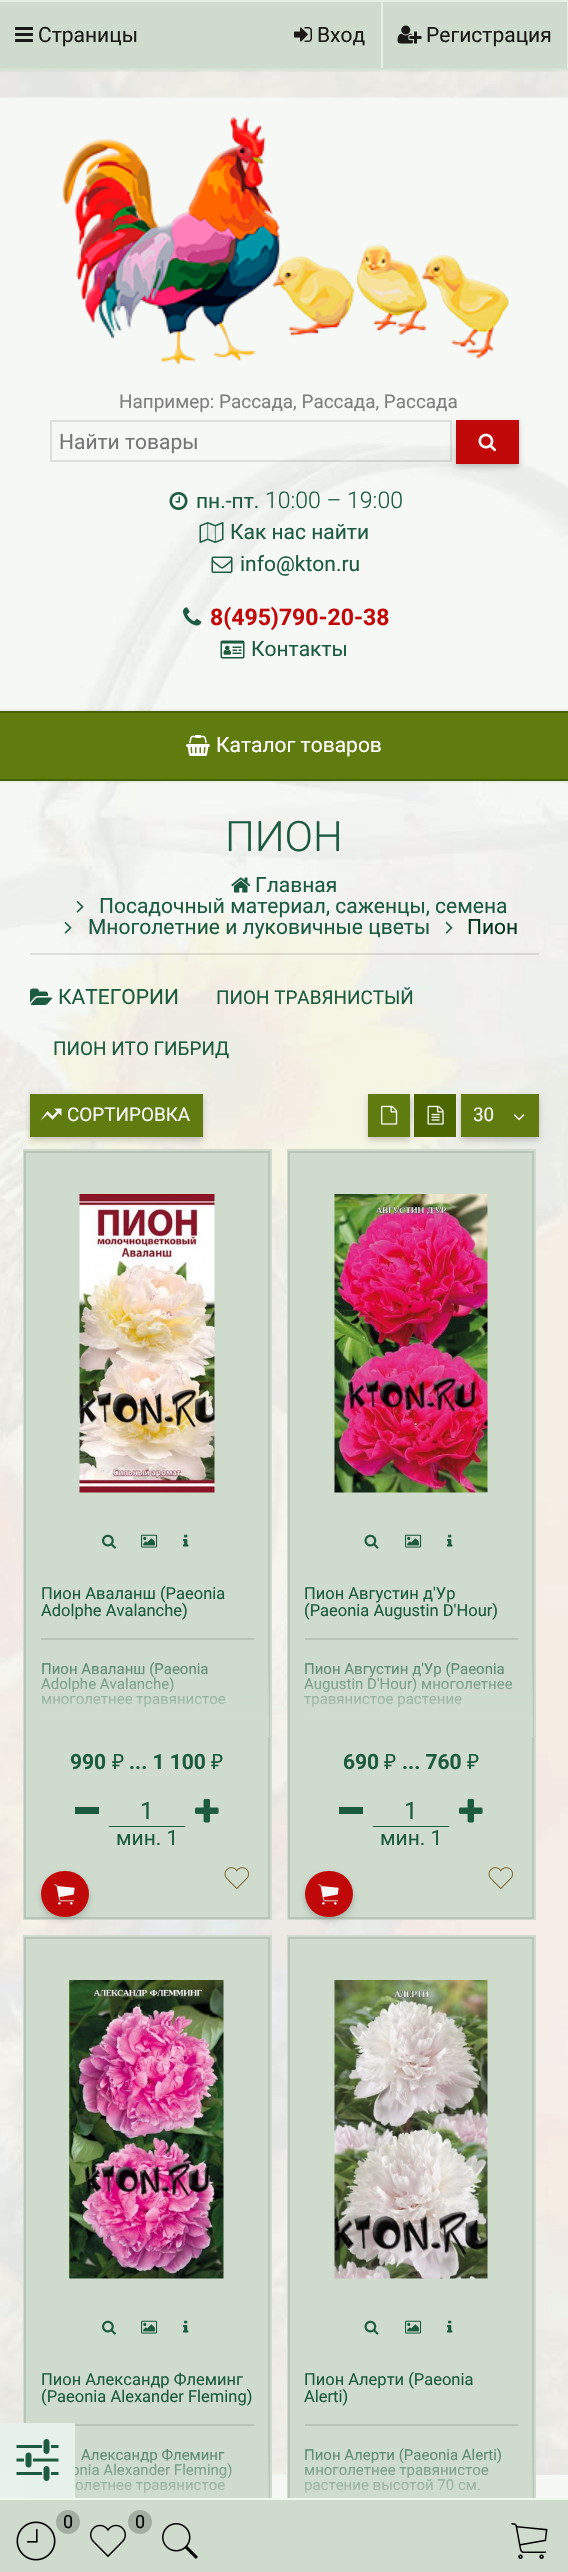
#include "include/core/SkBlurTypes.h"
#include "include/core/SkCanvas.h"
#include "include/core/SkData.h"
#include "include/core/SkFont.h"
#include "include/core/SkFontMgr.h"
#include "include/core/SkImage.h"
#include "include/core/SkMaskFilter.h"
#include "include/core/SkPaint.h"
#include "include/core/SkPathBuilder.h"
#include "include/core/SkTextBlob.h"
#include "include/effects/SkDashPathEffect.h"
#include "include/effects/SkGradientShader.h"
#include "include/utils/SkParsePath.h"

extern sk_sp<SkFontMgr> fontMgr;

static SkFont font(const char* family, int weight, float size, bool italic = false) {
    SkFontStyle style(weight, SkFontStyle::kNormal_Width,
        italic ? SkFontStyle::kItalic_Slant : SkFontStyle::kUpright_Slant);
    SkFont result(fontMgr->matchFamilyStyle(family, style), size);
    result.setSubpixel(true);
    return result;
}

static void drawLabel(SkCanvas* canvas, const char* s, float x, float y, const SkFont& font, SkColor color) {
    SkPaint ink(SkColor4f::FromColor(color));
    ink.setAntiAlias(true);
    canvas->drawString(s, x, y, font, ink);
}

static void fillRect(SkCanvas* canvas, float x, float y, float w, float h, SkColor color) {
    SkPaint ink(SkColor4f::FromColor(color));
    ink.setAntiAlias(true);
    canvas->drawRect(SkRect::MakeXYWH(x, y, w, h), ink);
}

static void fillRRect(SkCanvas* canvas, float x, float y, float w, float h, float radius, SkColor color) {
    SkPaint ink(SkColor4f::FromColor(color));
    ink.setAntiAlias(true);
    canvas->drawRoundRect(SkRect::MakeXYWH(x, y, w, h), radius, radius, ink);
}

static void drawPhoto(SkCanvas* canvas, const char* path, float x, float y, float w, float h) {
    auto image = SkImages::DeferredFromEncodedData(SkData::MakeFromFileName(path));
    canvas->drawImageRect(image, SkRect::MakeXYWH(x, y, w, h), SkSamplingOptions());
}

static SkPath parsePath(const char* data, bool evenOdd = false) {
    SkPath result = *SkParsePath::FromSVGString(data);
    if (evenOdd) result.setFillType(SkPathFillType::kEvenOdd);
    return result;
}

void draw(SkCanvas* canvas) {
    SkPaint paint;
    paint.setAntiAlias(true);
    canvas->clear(0xFFF5F8F5);
    drawPhoto(canvas, "assets/img1.png", 0, 70, 568, 2405);
    fillRect(canvas, 0, 2, 567, 66, 0xFFCEDBCD);
    fillRect(canvas, 0, 0, 568, 2, 0xFFE2EFE1);
    fillRect(canvas, 0, 68, 568, 2, 0xFFE2EFE1);
    drawPhoto(canvas, "assets/img2.png", 15, 27, 18, 15);
    SkFont font1 = font("Roboto", 400, 21);
    drawLabel(canvas, "Страницы", 38, 42, font1, 0xFF1B1818);
    fillRect(canvas, 381, 2, 2, 66, 0xFFE2EFE1);
    drawPhoto(canvas, "assets/img3.png", 294, 27, 18, 15);
    drawLabel(canvas, "Вход", 317, 42, font1, 0xFF1B1818);
    fillRect(canvas, 567, 2, 1, 66, 0xFFE2EFE1);
    drawPhoto(canvas, "assets/img4.png", 397, 25, 25, 19);
    drawLabel(canvas, "Регистрация", 426, 42, font1, 0xFF1B1818);
    {
        const SkColor colors[] = {0x14000000, 0x00000000};
        const float stops[] = {0, 1};
        const SkPoint ends[] = {{284, 67}, {284, 74}};
        paint.setShader(SkGradientShader::MakeLinear(ends, colors, stops, 2, SkTileMode::kClamp));
        paint.setAlpha(255);
    }
    canvas->drawRect(SkRect::MakeXYWH(0, 68, 568, 4), paint);
    drawPhoto(canvas, "assets/img5.png", 62, 116, 447, 249);
    SkFont font2 = font("Roboto", 400, 18.9f);
    drawLabel(canvas, "Например: Рассада, Рассада, Рассада", 119, 408, font2, 0xFF7F7F7F);
    paint.setStroke(true);
    paint.setStrokeWidth(2);
    paint.setShader(nullptr);
    paint.setColor(0x1A000000);
    canvas->drawRect(SkRect::MakeXYWH(51, 421, 400, 40), paint);
    canvas->save();
    canvas->clipRect(SkRect::MakeXYWH(59, 429, 378, 24));
    drawLabel(canvas, "Найти товары", 59, 449, font1, 0xFF757575);
    canvas->restore();
    paint.setStroke(false);
    paint.setColor(0x33000000);
    paint.setMaskFilter(SkMaskFilter::MakeBlur(kNormal_SkBlurStyle, 3));
    canvas->drawRect(SkRect::MakeXYWH(456, 423, 63, 44), paint);
    paint.setMaskFilter(nullptr);
    fillRect(canvas, 456, 420, 63, 44, 0xFFC20909);
    drawPhoto(canvas, "assets/img6.png", 478, 433, 18, 19);
    drawPhoto(canvas, "assets/img7.png", 169, 492, 19, 18);
    drawLabel(canvas, "пн.-пт.", 196, 508, font1, 0xFF1C5B3F);
    SkFont font3 = font("Roboto", 300, 23);
    drawLabel(canvas, "10:00 – 19:00", 265, 508, font3, 0xFF1C5B3F);
    drawPhoto(canvas, "assets/img8.png", 199, 522, 25, 21);
    drawLabel(canvas, "Как нас найти", 230, 539, font1, 0xFF1C5B3F);
    drawPhoto(canvas, "assets/img9.png", 211, 556, 22, 17);
    drawLabel(canvas, "info@kton.ru", 240, 571, font1, 0xFF1C5B3F);
    drawPhoto(canvas, "assets/img10.png", 183, 607, 19, 19);
    SkFont font4 = font("Roboto", 700, 23);
    drawLabel(canvas, "8(495)790-20-38", 210, 625, font4, 0xFFC20909);
    drawPhoto(canvas, "assets/img11.png", 220, 640, 25, 19);
    drawLabel(canvas, "Контакты", 251, 656, font1, 0xFF1C5B3F);
    fillRect(canvas, 0, 713, 568, 66, 0xFF607B0E);
    fillRect(canvas, 0, 711, 568, 2, 0xFF4C6700);
    fillRect(canvas, 0, 779, 568, 2, 0xFF4C6700);
    {
        const SkColor colors[] = {0x14000000, 0x00000000};
        const float stops[] = {0, 1};
        const SkPoint ends[] = {{284, 713}, {284, 707}};
        paint.setShader(SkGradientShader::MakeLinear(ends, colors, stops, 2, SkTileMode::kClamp));
        paint.setAlpha(255);
    }
    canvas->drawRect(SkRect::MakeXYWH(0, 709, 568, 4), paint);
    drawPhoto(canvas, "assets/img12.png", 186, 735, 24, 21);
    drawLabel(canvas, "Каталог товаров", 216, 752, font1, 0xFFFFFFFF);
    {
        const SkColor colors[] = {0x14000000, 0x00000000};
        const float stops[] = {0, 1};
        const SkPoint ends[] = {{284, 779}, {284, 785}};
        paint.setShader(SkGradientShader::MakeLinear(ends, colors, stops, 2, SkTileMode::kClamp));
        paint.setAlpha(255);
    }
    canvas->drawRect(SkRect::MakeXYWH(0, 779, 568, 4), paint);
    fillRect(canvas, 23, 1935, 249, 563, 0xFFCEDBCD);
    paint.setStroke(true);
    paint.setShader(nullptr);
    paint.setColor(0xFFB9C5B9);
    canvas->drawRect(SkRect::MakeXYWH(25, 1938, 244, 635), paint);
    fillRect(canvas, 41, 2424, 213, 2, 0xFFB9C5B9);
    SkFont font5 = font("Roboto", 400, 15);
    drawLabel(canvas, "onia Alexander Fleming)", 71, 2475, font5, 0xFF51816A);
    drawLabel(canvas, "Александр Флеминг", 81, 2460, font5, 0xFF51816A);
    drawLabel(canvas, "олетнее травянистое", 75, 2490, font5, 0xFF51816A);
    paint.setStroke(false);
    {
        const SkColor colors[] = {0x00CEDBCD, 0xFFCEDBCD};
        const float stops[] = {0, 0.85f};
        const SkPoint ends[] = {{147, 2448}, {147, 2523}};
        paint.setShader(SkGradientShader::MakeLinear(ends, colors, stops, 2, SkTileMode::kClamp));
        paint.setAlpha(255);
    }
    canvas->drawRect(SkRect::MakeXYWH(71, 2450, 198, 48), paint);
    fillRect(canvas, 0, 2423, 75, 75, 0xF2E7F1EC);
    drawPhoto(canvas, "assets/img13.png", 16, 2439, 43, 42);
    SkFont font6 = font("Roboto", 300, 42);
    drawLabel(canvas, "ПИОН", 225, 851, font6, 0xFF1C5B3F);
    fillRect(canvas, 30, 953, 509, 2, 0x1A000000);
    drawPhoto(canvas, "assets/img14.png", 231, 877, 20, 16);
    drawLabel(canvas, "Главная", 255, 892, font1, 0xFF1C5B3F);
    drawPhoto(canvas, "assets/img15.png", 76, 901, 8, 12);
    drawLabel(canvas, "Посадочный материал, саженцы, семена", 99, 913, font1, 0xFF1C5B3F);
    drawPhoto(canvas, "assets/img16.png", 64, 922, 8, 12);
    drawLabel(canvas, "Многолетние и луковичные цветы", 88, 934, font1, 0xFF1C5B3F);
    drawPhoto(canvas, "assets/img17.png", 445, 922, 8, 12);
    drawLabel(canvas, "Пион", 467, 934, font1, 0xFF003317);
    drawPhoto(canvas, "assets/img18.png", 30, 988, 22, 17);
    drawLabel(canvas, "КАТЕГОРИИ", 58, 1004, font1, 0xFF1C5B3F);
    drawLabel(canvas, "ПИОН ТРАВЯНИСТЫЙ", 216, 1004, font2, 0xFF1C5B3F);
    drawLabel(canvas, "ПИОН ИТО ГИБРИД", 53, 1055, font2, 0xFF1C5B3F);
    fillRect(canvas, 23, 1149, 249, 771, 0xFFCEDBCD);
    paint.setShader(nullptr);
    paint.setColor(0x33000000);
    paint.setMaskFilter(SkMaskFilter::MakeBlur(kNormal_SkBlurStyle, 3));
    canvas->drawRect(SkRect::MakeXYWH(30, 1097, 173, 43), paint);
    paint.setMaskFilter(nullptr);
    fillRect(canvas, 30, 1094, 173, 43, 0xFF607B0E);
    drawPhoto(canvas, "assets/img19.png", 40, 1108, 22, 13);
    drawLabel(canvas, "СОРТИРОВКА", 67, 1121, font2, 0xFFF5F5F5);
    fillRect(canvas, 287, 1149, 249, 771, 0xFFCEDBCD);
    paint.setMaskFilter(SkMaskFilter::MakeBlur(kNormal_SkBlurStyle, 3));
    canvas->drawRect(SkRect::MakeXYWH(368, 1097, 42, 43), paint);
    paint.setMaskFilter(nullptr);
    fillRect(canvas, 368, 1094, 42, 43, 0xFF607B0E);
    drawPhoto(canvas, "assets/img20.png", 381, 1105, 17, 20);
    fillRect(canvas, 414, 1094, 42, 43, 0xFF4C6700);
    drawPhoto(canvas, "assets/img21.png", 427, 1105, 17, 20);
    paint.setMaskFilter(SkMaskFilter::MakeBlur(kNormal_SkBlurStyle, 3));
    canvas->drawRect(SkRect::MakeXYWH(461, 1097, 78, 43), paint);
    paint.setMaskFilter(nullptr);
    fillRect(canvas, 461, 1094, 78, 43, 0xFF607B0E);
    drawLabel(canvas, "30", 473, 1121, font2, 0xFFF5F5F5);
    drawPhoto(canvas, "assets/img22.png", 513, 1114, 12, 7);
    paint.setStroke(true);
    paint.setColor(0xFFB9C5B9);
    canvas->drawRect(SkRect::MakeXYWH(25, 1152, 244, 766), paint);
    drawPhoto(canvas, "assets/img23.png", 79, 1194, 136, 299);
    drawPhoto(canvas, "assets/img24.png", 102, 1534, 14, 15);
    drawPhoto(canvas, "assets/img25.png", 141, 1534, 17, 14);
    drawPhoto(canvas, "assets/img26.png", 183, 1534, 6, 13);
    fillRect(canvas, 41, 1638, 213, 2, 0xFFB9C5B9);
    SkFont font7 = font("Roboto", 400, 16.5f);
    drawLabel(canvas, "Пион Аваланш (Paeonia", 41, 1599, font7, 0xFF1C5B3F);
    drawLabel(canvas, "Adolphe Avalanche)", 41, 1616, font7, 0xFF1C5B3F);
    drawLabel(canvas, "Пион Аваланш (Paeonia", 41, 1674, font5, 0xFF51816A);
    drawLabel(canvas, "Adolphe Avalanche)", 41, 1689, font5, 0xFF51816A);
    drawLabel(canvas, "многолетнее травянистое", 41, 1704, font5, 0xFF51816A);
    paint.setStroke(false);
    {
        const SkColor colors[] = {0x00CEDBCD, 0xFFCEDBCD};
        const float stops[] = {0, 0.85f};
        const SkPoint ends[] = {{147, 1662}, {147, 1737}};
        paint.setShader(SkGradientShader::MakeLinear(ends, colors, stops, 2, SkTileMode::kClamp));
        paint.setAlpha(255);
    }
    canvas->drawRect(SkRect::MakeXYWH(40, 1664, 229, 73), paint);
    SkFont font8 = font("Roboto", 700, 21);
    drawLabel(canvas, "990", 70, 1769, font8, 0xFF1C5B3F);
    SkFont font9 = font("Noto Sans", 400, 21);
    drawLabel(canvas, "₽", 112, 1769, font9, 0xFF1C5B3F);
    drawLabel(canvas, "... 1 100", 129, 1769, font8, 0xFF1C5B3F);
    drawLabel(canvas, "₽", 211, 1769, font9, 0xFF1C5B3F);
    fillRect(canvas, 75, 1807, 24, 7, 0xFF1C5B3F);
    paint.setShader(nullptr);
    paint.setColor(0xFF1C5B3F);
    canvas->drawPath(parsePath("M186 1827H108L110 1826H184Z"), paint);
    SkFont font10 = font("Roboto", 400, 24);
    drawLabel(canvas, "1", 140, 1819, font10, 0xFF1C5B3F);
    drawPhoto(canvas, "assets/img27.png", 195, 1798, 24, 25);
    drawLabel(canvas, "мин. 1", 116, 1845, font1, 0xFF1C5B3F);
    paint.setColor(0x33000000);
    paint.setMaskFilter(SkMaskFilter::MakeBlur(kNormal_SkBlurStyle, 3));
    canvas->drawRoundRect(SkRect::MakeXYWH(41, 1874, 48, 46), 23, 23, paint);
    paint.setMaskFilter(nullptr);
    fillRRect(canvas, 41, 1871, 48, 46, 23, 0xFFC20909);
    drawPhoto(canvas, "assets/img28.png", 54, 1884, 21, 21);
    drawPhoto(canvas, "assets/img29.png", 224, 1867, 25, 23);
    paint.setStroke(true);
    paint.setColor(0xFFB9C5B9);
    canvas->drawRect(SkRect::MakeXYWH(289, 1152, 244, 766), paint);
    drawPhoto(canvas, "assets/img30.png", 334, 1194, 154, 299);
    drawPhoto(canvas, "assets/img31.png", 364, 1534, 15, 15);
    drawPhoto(canvas, "assets/img25.png", 405, 1534, 17, 14);
    drawPhoto(canvas, "assets/img26.png", 447, 1534, 6, 13);
    fillRect(canvas, 305, 1638, 213, 2, 0xFFB9C5B9);
    drawLabel(canvas, "Пион Августин д'Ур", 304, 1599, font7, 0xFF1C5B3F);
    drawLabel(canvas, "(Paeonia Augustin D'Hour)", 304, 1616, font7, 0xFF1C5B3F);
    drawLabel(canvas, "Пион Августин д'Ур (Paeonia", 304, 1674, font5, 0xFF51816A);
    drawLabel(canvas, "Augustin D'Hour) многолетнее", 304, 1689, font5, 0xFF51816A);
    drawLabel(canvas, "травянистое растение", 304, 1704, font5, 0xFF51816A);
    paint.setStroke(false);
    {
        const SkColor colors[] = {0x00CEDBCD, 0xFFCEDBCD};
        const float stops[] = {0, 0.85f};
        const SkPoint ends[] = {{411, 1662}, {411, 1737}};
        paint.setShader(SkGradientShader::MakeLinear(ends, colors, stops, 2, SkTileMode::kClamp));
        paint.setAlpha(255);
    }
    canvas->drawRect(SkRect::MakeXYWH(304, 1663, 229, 74), paint);
    drawLabel(canvas, "690", 343, 1769, font8, 0xFF1C5B3F);
    drawLabel(canvas, "₽", 384, 1769, font9, 0xFF1C5B3F);
    drawLabel(canvas, "... 760", 402, 1769, font8, 0xFF1C5B3F);
    drawLabel(canvas, "₽", 467, 1769, font9, 0xFF1C5B3F);
    fillRect(canvas, 339, 1807, 24, 7, 0xFF1C5B3F);
    paint.setShader(nullptr);
    paint.setColor(0xFF1C5B3F);
    canvas->drawPath(parsePath("M450 1827H372L374 1826H448Z"), paint);
    drawLabel(canvas, "1", 404, 1819, font10, 0xFF1C5B3F);
    drawPhoto(canvas, "assets/img27.png", 459, 1798, 24, 25);
    drawLabel(canvas, "мин. 1", 380, 1845, font1, 0xFF1C5B3F);
    paint.setColor(0x33000000);
    paint.setMaskFilter(SkMaskFilter::MakeBlur(kNormal_SkBlurStyle, 3));
    canvas->drawRoundRect(SkRect::MakeXYWH(305, 1874, 48, 46), 23, 23, paint);
    paint.setMaskFilter(nullptr);
    fillRRect(canvas, 305, 1871, 48, 46, 23, 0xFFC20909);
    drawPhoto(canvas, "assets/img28.png", 318, 1884, 21, 21);
    drawPhoto(canvas, "assets/img29.png", 488, 1867, 25, 23);
    drawPhoto(canvas, "assets/img32.png", 69, 1980, 155, 299);
    drawPhoto(canvas, "assets/img24.png", 102, 2320, 14, 15);
    drawPhoto(canvas, "assets/img25.png", 141, 2320, 17, 14);
    drawPhoto(canvas, "assets/img26.png", 183, 2320, 6, 13);
    drawLabel(canvas, "Пион Александр Флеминг", 41, 2385, font7, 0xFF1C5B3F);
    drawLabel(canvas, "(Paeonia Alexander Fleming)", 41, 2402, font7, 0xFF1C5B3F);
    fillRect(canvas, 287, 1935, 249, 563, 0xFFCEDBCD);
    paint.setStroke(true);
    paint.setColor(0xFFB9C5B9);
    canvas->drawRect(SkRect::MakeXYWH(289, 1938, 244, 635), paint);
    drawPhoto(canvas, "assets/img33.png", 334, 1980, 154, 299);
    drawPhoto(canvas, "assets/img31.png", 364, 2320, 15, 15);
    drawPhoto(canvas, "assets/img25.png", 405, 2320, 17, 14);
    drawPhoto(canvas, "assets/img26.png", 447, 2320, 6, 13);
    fillRect(canvas, 305, 2424, 213, 2, 0xFFB9C5B9);
    drawLabel(canvas, "Пион Алерти (Paeonia", 304, 2385, font7, 0xFF1C5B3F);
    drawLabel(canvas, "Alerti)", 304, 2402, font7, 0xFF1C5B3F);
    drawLabel(canvas, "Пион Алерти (Paeonia Alerti)", 304, 2460, font5, 0xFF51816A);
    drawLabel(canvas, "многолетнее травянистое", 304, 2475, font5, 0xFF51816A);
    drawLabel(canvas, "растение высотой 70 см.", 304, 2490, font5, 0xFF51816A);
    paint.setStroke(false);
    {
        const SkColor colors[] = {0x00CEDBCD, 0xFFCEDBCD};
        const float stops[] = {0, 0.85f};
        const SkPoint ends[] = {{411, 2448}, {411, 2523}};
        paint.setShader(SkGradientShader::MakeLinear(ends, colors, stops, 2, SkTileMode::kClamp));
        paint.setAlpha(255);
    }
    canvas->drawRect(SkRect::MakeXYWH(305, 2449, 228, 49), paint);
    fillRect(canvas, 0, 2500, 568, 72, 0xFFCEDBCD);
    fillRect(canvas, 0, 2498, 568, 2, 0xFFECF9EB);
    drawPhoto(canvas, "assets/img34.png", 16, 2521, 40, 40);
    paint.setShader(nullptr);
    paint.setColor(0xFFA1AEA0);
    canvas->drawCircle(68, 2522, 12, paint);
    SkFont font11 = font("Roboto", 400, 18);
    drawLabel(canvas, "0", 63, 2528, font11, 0xFF000000);
    canvas->drawCircle(140, 2522, 12, paint);
    drawLabel(canvas, "0", 135, 2528, font11, 0xFF000000);
    drawPhoto(canvas, "assets/img35.png", 90, 2524, 36, 34);
    drawPhoto(canvas, "assets/img36.png", 162, 2523, 36, 36);
    drawPhoto(canvas, "assets/img37.png", 511, 2523, 37, 36);
}
